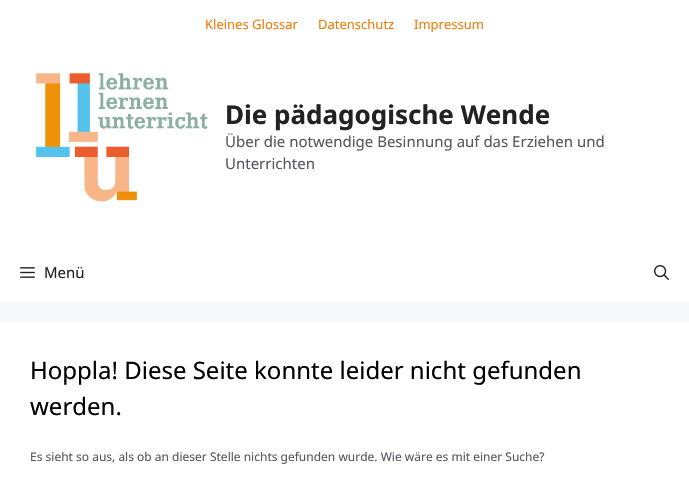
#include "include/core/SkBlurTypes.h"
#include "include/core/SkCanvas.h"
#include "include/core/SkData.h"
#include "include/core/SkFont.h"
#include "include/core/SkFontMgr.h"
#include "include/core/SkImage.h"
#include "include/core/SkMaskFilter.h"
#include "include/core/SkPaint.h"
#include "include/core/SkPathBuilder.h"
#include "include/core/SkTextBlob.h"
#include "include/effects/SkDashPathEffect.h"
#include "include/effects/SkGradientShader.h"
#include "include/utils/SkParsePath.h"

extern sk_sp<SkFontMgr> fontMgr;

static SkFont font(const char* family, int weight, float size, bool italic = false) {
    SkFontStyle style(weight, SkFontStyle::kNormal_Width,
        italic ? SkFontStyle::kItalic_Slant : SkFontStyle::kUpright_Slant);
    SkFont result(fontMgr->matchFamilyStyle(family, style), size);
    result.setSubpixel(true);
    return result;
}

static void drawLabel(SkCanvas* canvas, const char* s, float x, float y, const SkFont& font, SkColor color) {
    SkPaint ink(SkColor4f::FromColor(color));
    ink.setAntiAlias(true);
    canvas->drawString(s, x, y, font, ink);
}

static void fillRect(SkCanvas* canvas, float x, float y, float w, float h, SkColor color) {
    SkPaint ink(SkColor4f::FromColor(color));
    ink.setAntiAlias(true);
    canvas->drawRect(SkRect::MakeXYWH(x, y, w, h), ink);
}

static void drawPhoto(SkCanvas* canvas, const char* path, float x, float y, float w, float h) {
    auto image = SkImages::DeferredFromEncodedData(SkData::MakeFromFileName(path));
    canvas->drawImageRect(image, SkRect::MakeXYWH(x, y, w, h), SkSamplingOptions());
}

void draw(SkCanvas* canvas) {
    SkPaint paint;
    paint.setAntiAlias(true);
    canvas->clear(0xFFF7F8F9);
    fillRect(canvas, 0, 0, 689, 50, 0xFFFFFFFF);
    SkFont font1 = font("Noto Sans", 400, 13);
    drawLabel(canvas, "Kleines Glossar", 205, 29, font1, 0xFFED7D0B);
    drawLabel(canvas, "Datenschutz", 318, 29, font1, 0xFFED7D0B);
    drawLabel(canvas, "Impressum", 414, 29, font1, 0xFFED7D0B);
    fillRect(canvas, 0, 50, 689, 252, 0xFFFFFFFF);
    drawPhoto(canvas, "assets/img1.png", 35, 73, 173, 129);
    SkFont font2 = font("Noto Sans", 700, 26);
    drawLabel(canvas, "Die pädagogische Wende", 225, 124, font2, 0xFF222222);
    SkFont font3 = font("Noto Sans", 400, 15);
    drawLabel(canvas, "Über die notwendige Besinnung auf das Erziehen und", 225, 147, font3, 0xFF575760);
    drawLabel(canvas, "Unterrichten", 225, 169, font3, 0xFF575760);
    drawPhoto(canvas, "assets/img2.png", 20, 267, 15, 11);
    drawLabel(canvas, "Menü", 44, 278, font3, 0xFF222222);
    drawPhoto(canvas, "assets/img3.png", 654, 265, 15, 15);
    fillRect(canvas, 0, 322, 689, 162, 0xFFFFFFFF);
    SkFont font4 = font("Noto Sans", 400, 24);
    drawLabel(canvas, "Hoppla! Diese Seite konnte leider nicht gefunden", 30, 379, font4, 0xFF000000);
    drawLabel(canvas, "werden.", 30, 415, font4, 0xFF000000);
    SkFont font5 = font("Noto Sans", 400, 12);
    drawLabel(canvas, "Es sieht so aus, als ob an dieser Stelle nichts gefunden wurde. Wie wäre es mit einer Suche?", 30, 461, font5, 0xFF575760);
}
